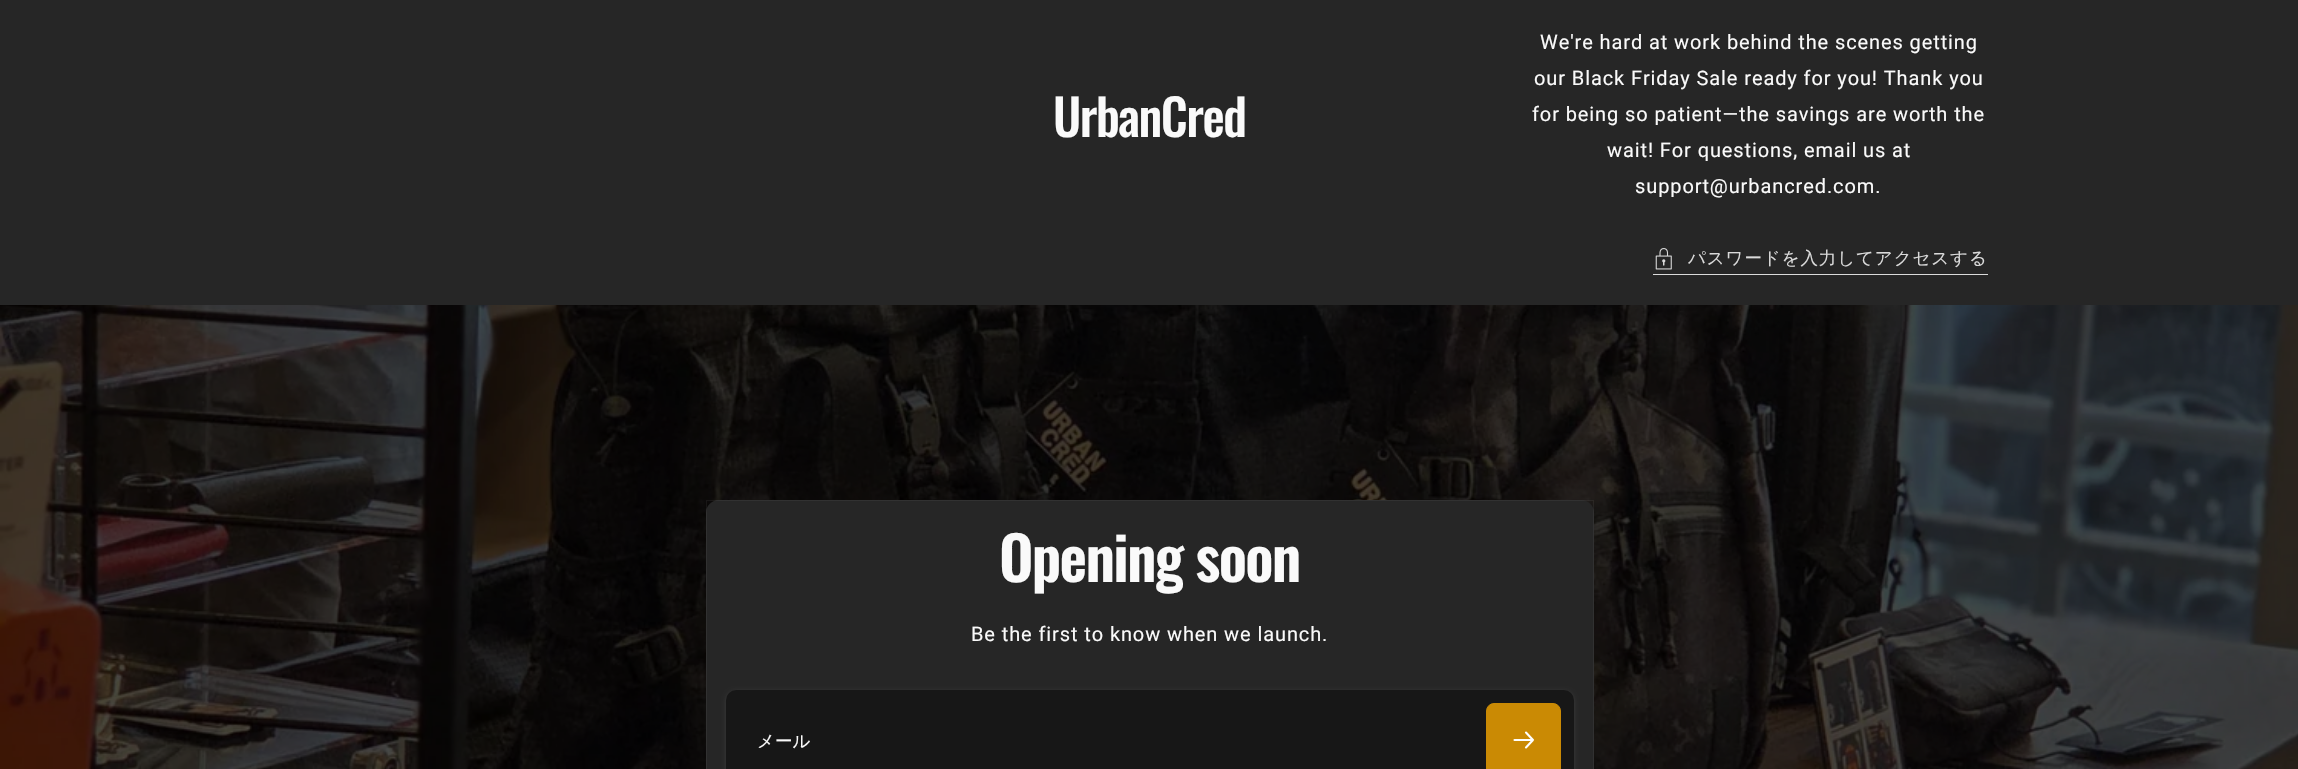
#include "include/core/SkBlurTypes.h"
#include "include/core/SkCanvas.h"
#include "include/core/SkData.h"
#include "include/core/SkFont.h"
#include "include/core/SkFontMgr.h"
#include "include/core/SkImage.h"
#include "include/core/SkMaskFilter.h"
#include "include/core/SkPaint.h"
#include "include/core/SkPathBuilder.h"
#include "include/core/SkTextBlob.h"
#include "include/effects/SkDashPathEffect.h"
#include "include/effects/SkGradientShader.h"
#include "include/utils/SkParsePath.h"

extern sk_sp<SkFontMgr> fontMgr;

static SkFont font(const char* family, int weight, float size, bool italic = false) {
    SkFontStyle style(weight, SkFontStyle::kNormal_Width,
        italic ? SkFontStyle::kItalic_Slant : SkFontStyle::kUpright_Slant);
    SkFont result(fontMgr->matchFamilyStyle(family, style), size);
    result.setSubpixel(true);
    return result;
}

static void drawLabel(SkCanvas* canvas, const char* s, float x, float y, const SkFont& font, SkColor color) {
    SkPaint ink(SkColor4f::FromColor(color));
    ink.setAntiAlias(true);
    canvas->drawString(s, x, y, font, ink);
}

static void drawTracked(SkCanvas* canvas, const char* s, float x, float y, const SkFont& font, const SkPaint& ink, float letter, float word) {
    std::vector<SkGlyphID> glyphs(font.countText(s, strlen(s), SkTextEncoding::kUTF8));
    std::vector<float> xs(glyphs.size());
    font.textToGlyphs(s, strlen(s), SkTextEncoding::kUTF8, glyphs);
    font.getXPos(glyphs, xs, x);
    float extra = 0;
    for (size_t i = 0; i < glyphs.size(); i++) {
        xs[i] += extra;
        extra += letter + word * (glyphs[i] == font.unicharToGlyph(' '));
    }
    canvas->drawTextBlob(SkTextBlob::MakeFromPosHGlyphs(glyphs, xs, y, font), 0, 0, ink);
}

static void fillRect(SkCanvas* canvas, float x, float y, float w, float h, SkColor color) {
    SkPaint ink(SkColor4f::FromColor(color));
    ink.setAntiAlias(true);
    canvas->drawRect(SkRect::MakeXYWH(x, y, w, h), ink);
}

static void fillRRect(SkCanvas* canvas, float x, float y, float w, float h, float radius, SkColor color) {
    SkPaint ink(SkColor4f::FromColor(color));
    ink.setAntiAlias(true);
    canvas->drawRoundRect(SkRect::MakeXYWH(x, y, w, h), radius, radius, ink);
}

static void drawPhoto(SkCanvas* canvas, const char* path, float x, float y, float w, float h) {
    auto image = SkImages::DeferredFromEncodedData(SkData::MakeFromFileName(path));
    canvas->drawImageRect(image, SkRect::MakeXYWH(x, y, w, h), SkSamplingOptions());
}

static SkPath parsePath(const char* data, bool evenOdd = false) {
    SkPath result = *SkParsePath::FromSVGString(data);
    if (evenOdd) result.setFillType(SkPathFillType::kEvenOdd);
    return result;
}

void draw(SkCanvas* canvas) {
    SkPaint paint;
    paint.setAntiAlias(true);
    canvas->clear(0xFF262626);
    SkFont font1 = font("Oswald", 500, 50);
    paint.setColor(0xFFFAFAFA);
    drawTracked(canvas, "UrbanCred", 1053, 137, font1, paint, -1.5f, 0);
    SkFont font2 = font("Roboto", 400, 20);
    drawTracked(canvas, "We're hard at work behind the scenes getting", 1540, 49, font2, paint, 0.9f, 0);
    drawTracked(canvas, "our Black Friday Sale ready for you! Thank you", 1534, 85, font2, paint, 0.9f, 0);
    drawTracked(canvas, "for being so patient—the savings are worth the", 1532, 121, font2, paint, 0.9f, 0);
    drawTracked(canvas, "wait! For questions, email us at", 1607, 157, font2, paint, 0.9f, 0);
    drawTracked(canvas, "support@urbancred.com.", 1635, 193, font2, paint, 0.9f, 0);
    drawPhoto(canvas, "assets/img1.png", 1655, 248, 17, 22);
    SkFont font3 = font("WenQuanYi Zen Hei", 500, 17.5f);
    paint.setColor(0xFFDADADA);
    drawTracked(canvas, "パスワードを入力してアクセスする", 1688, 264, font3, paint, 0.9f, 0);
    fillRect(canvas, 1653, 274, 335, 1, 0xFFDADADA);
    drawPhoto(canvas, "assets/img2.png", 0, 305, 2298, 464);
    fillRRect(canvas, 706, 500, 888, 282, 13, 0xFF262626);
    paint.setStroke(true);
    paint.setStrokeWidth(1);
    paint.setColor(0x0DFAFAFA);
    canvas->drawRect(SkRect::MakeXYWH(706.5f, 500.5f, 887, 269), paint);
    SkFont font4 = font("Oswald", 600, 60);
    paint.setStroke(false);
    paint.setColor(0xFFFAFAFA);
    drawTracked(canvas, "Opening soon", 999, 582, font4, paint, -1.75f, 0);
    drawTracked(canvas, "Be the first to know when we launch.", 971, 641, font2, paint, 0.9f, 0);
    paint.setColor(0x1AFAFAFA);
    paint.setMaskFilter(SkMaskFilter::MakeBlur(kNormal_SkBlurStyle, 2));
    canvas->drawRoundRect(SkRect::MakeXYWH(726, 691, 848, 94), 10, 10, paint);
    paint.setMaskFilter(nullptr);
    fillRRect(canvas, 726, 690, 848, 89, 10, 0xFF171717);
    drawLabel(canvas, "メール", 757, 747, font3, 0xFFFAFAFA);
    paint.setColor(0xFFCA8A04);
    canvas->drawRoundRect(SkRect::MakeXYWH(1486.5f, 703.5f, 74, 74), 7.5f, 7.5f, paint);
    paint.setStroke(true);
    canvas->drawRoundRect(SkRect::MakeXYWH(1486.5f, 703.5f, 74, 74), 7.5f, 7.5f, paint);
    paint.setStrokeWidth(2.1f);
    paint.setStrokeCap(SkPaint::kRound_Cap);
    paint.setStrokeJoin(SkPaint::kRound_Join);
    paint.setColor(0xFFFFFFFF);
    canvas->drawPath(parsePath("M1526 732.5L1533 740M1533 740L1526 747.5M1533 740H1514.5"), paint);
}
